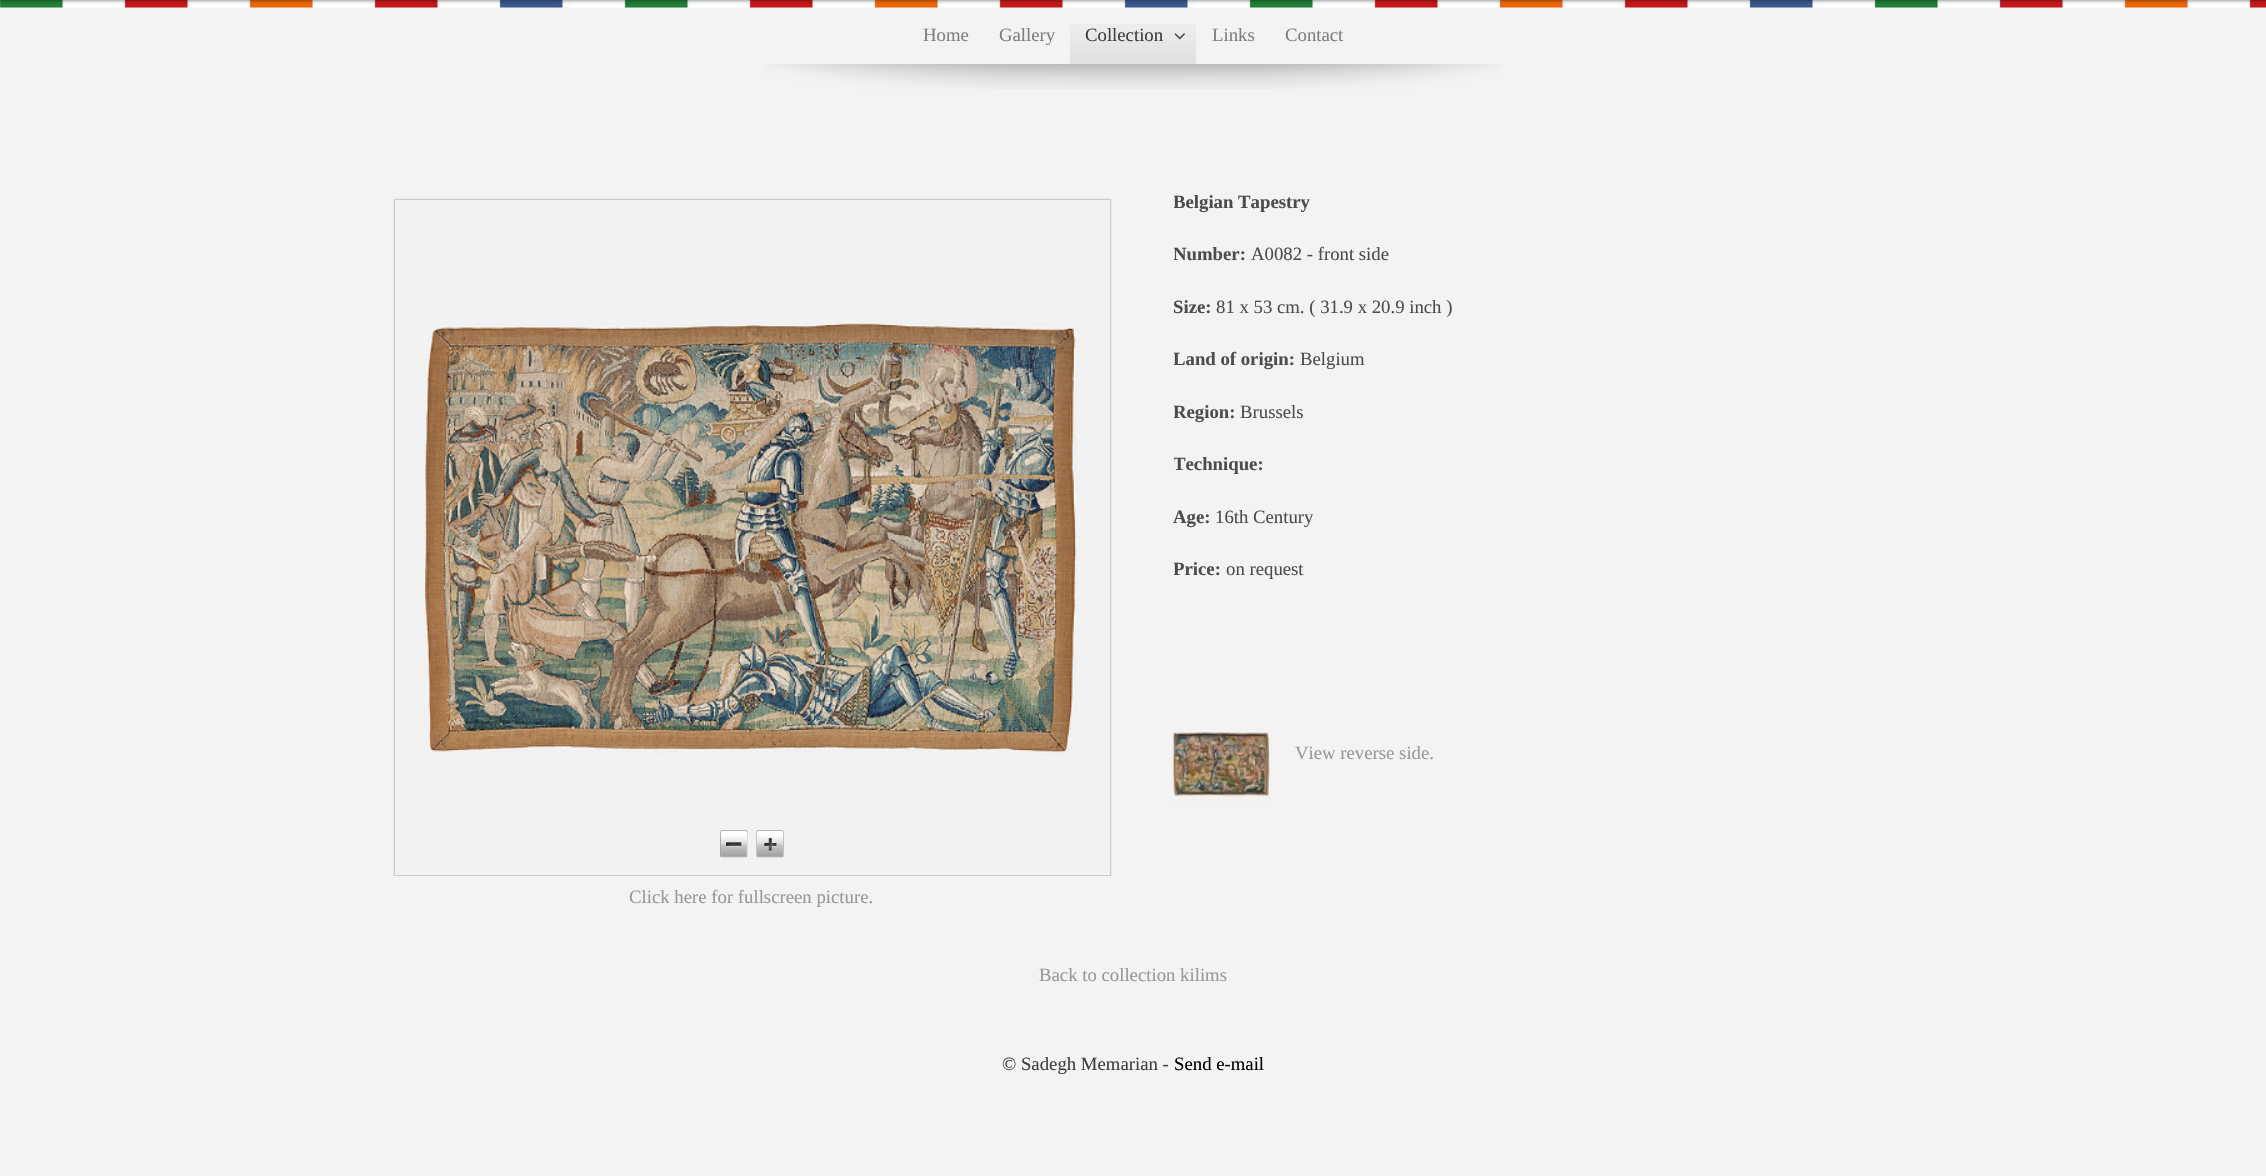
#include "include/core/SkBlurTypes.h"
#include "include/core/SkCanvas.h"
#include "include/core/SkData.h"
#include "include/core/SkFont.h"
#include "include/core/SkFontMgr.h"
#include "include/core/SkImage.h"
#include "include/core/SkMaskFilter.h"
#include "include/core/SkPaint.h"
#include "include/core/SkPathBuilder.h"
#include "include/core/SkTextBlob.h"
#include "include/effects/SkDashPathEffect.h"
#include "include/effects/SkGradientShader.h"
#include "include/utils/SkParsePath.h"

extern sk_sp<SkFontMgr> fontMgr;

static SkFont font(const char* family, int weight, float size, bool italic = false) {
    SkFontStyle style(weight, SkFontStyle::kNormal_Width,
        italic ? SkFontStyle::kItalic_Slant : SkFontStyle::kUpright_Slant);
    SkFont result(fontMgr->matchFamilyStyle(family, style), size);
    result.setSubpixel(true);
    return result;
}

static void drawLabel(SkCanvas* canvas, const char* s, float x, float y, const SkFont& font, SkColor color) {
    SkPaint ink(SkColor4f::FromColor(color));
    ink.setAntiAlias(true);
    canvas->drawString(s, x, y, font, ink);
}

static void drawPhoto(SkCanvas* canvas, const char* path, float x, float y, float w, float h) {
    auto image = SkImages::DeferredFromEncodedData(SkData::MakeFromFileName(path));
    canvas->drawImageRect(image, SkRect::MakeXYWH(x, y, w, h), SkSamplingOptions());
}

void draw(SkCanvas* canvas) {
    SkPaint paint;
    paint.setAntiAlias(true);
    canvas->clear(0xFFF3F3F3);
    drawPhoto(canvas, "assets/img1.png", 0, 0, 2266, 8);
    drawPhoto(canvas, "assets/img2.png", 0, 0, 2266, 4);
    SkFont font1 = font("Liberation Serif", 400, 18.75f);
    drawLabel(canvas, "Home", 923, 41, font1, 0xFF7F7F7F);
    drawLabel(canvas, "Gallery", 999, 41, font1, 0xFF7F7F7F);
    drawPhoto(canvas, "assets/img3.png", 1070, 24, 126, 40);
    drawLabel(canvas, "Collection", 1085, 41, font1, 0xFF3F3F3F);
    drawPhoto(canvas, "assets/img4.png", 1174, 33, 11, 7);
    drawLabel(canvas, "Links", 1212, 41, font1, 0xFF7F7F7F);
    drawLabel(canvas, "Contact", 1285, 41, font1, 0xFF7F7F7F);
    drawPhoto(canvas, "assets/img5.png", 765, 64, 738, 25);
    canvas->save();
    canvas->clipRect(SkRect::MakeXYWH(1174, 189, 710, 525));
    SkFont font2 = font("Liberation Serif", 700, 18.75f);
    drawLabel(canvas, "Belgian Tapestry", 1173, 208, font2, 0xFF4C4C4C);
    drawLabel(canvas, "Number:", 1173, 260, font2, 0xFF4C4C4C);
    canvas->restore();
    drawLabel(canvas, "A0082 - front side", 1251, 260, font1, 0xFF4C4C4C);
    drawLabel(canvas, "Size:", 1173, 313, font2, 0xFF4C4C4C);
    drawLabel(canvas, "81 x 53 cm. ( 31.9 x 20.9 inch )", 1216, 313, font1, 0xFF4C4C4C);
    canvas->save();
    canvas->clipRect(SkRect::MakeXYWH(1174, 189, 710, 525));
    drawLabel(canvas, "Land of origin:", 1173, 365, font2, 0xFF4C4C4C);
    canvas->restore();
    drawLabel(canvas, "Belgium", 1300, 365, font1, 0xFF4C4C4C);
    canvas->save();
    canvas->clipRect(SkRect::MakeXYWH(1174, 189, 710, 525));
    drawLabel(canvas, "Region:", 1173, 418, font2, 0xFF4C4C4C);
    canvas->restore();
    drawLabel(canvas, "Brussels", 1240, 418, font1, 0xFF4C4C4C);
    canvas->save();
    canvas->clipRect(SkRect::MakeXYWH(1174, 189, 710, 525));
    drawLabel(canvas, "Technique:", 1173, 470, font2, 0xFF4C4C4C);
    canvas->restore();
    drawLabel(canvas, "Age:", 1173, 523, font2, 0xFF4C4C4C);
    drawLabel(canvas, "16th Century", 1215, 523, font1, 0xFF4C4C4C);
    canvas->save();
    canvas->clipRect(SkRect::MakeXYWH(1174, 189, 710, 525));
    drawLabel(canvas, "Price:", 1173, 575, font2, 0xFF4C4C4C);
    canvas->restore();
    drawLabel(canvas, "on request", 1226, 575, font1, 0xFF4C4C4C);
    drawPhoto(canvas, "assets/img6.png", 1171, 729, 100, 77);
    drawLabel(canvas, "View reverse side.", 1295, 759, font1, 0xFF989898);
    drawPhoto(canvas, "assets/img7.png", 393, 198, 719, 678);
    drawLabel(canvas, "Click here for fullscreen picture.", 629, 903, font1, 0xFF989898);
    drawLabel(canvas, "Back to collection kilims", 1039, 981, font1, 0xFF989898);
    drawLabel(canvas, "© Sadegh Memarian -", 1002, 1070, font1, 0xFF3F3F3F);
    drawLabel(canvas, "Send e-mail", 1174, 1070, font1, 0xFF000000);
}
